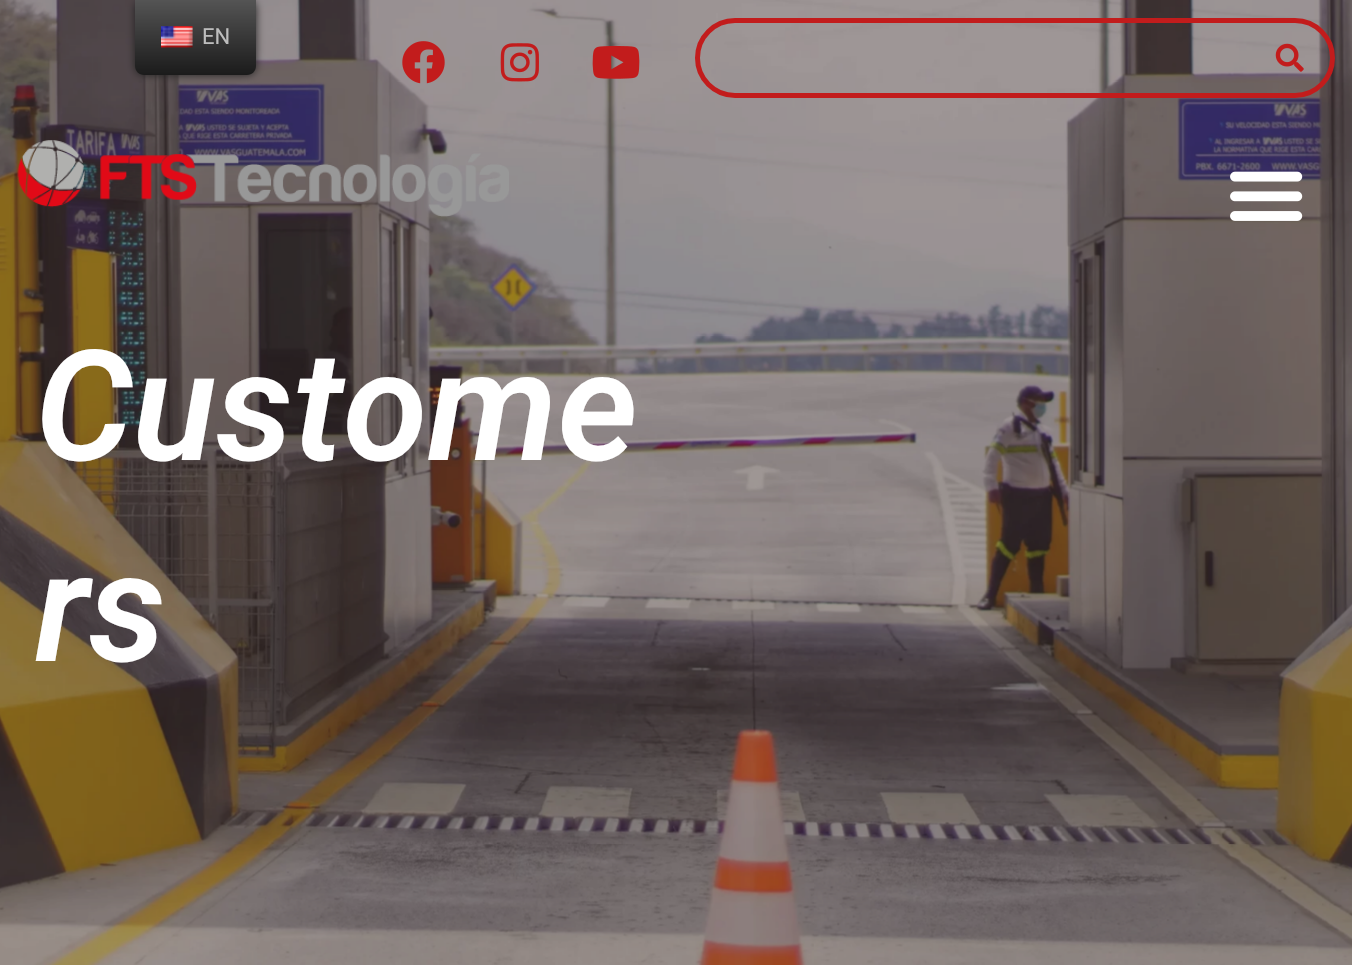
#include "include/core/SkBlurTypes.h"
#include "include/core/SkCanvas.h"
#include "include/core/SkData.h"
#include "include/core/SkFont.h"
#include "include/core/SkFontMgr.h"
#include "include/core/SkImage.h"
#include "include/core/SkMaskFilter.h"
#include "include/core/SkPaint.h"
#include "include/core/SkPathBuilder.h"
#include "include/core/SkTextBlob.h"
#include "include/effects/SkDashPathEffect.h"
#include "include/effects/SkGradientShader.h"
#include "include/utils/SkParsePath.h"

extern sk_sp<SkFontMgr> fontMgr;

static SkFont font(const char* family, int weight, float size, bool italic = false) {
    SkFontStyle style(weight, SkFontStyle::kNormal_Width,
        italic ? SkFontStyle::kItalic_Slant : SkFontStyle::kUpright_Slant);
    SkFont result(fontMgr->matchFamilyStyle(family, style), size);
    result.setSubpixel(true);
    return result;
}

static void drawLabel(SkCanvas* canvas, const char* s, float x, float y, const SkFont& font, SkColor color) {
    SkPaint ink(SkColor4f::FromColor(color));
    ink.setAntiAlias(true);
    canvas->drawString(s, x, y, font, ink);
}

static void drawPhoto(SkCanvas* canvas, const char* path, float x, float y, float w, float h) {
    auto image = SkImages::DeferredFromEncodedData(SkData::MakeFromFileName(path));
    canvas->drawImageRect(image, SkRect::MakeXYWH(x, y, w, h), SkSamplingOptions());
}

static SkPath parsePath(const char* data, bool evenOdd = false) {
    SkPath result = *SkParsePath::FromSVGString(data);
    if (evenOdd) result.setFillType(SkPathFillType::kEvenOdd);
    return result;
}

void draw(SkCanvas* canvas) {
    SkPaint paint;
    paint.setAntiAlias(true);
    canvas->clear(0xFFFFFFFF);
    drawPhoto(canvas, "assets/img8.png", 0, 0, 1352, 965);
    paint.setColor(0xFF212121);
    paint.setMaskFilter(SkMaskFilter::MakeBlur(kNormal_SkBlurStyle, 4.5f));
    canvas->drawRoundRect(SkRect::MakeXYWH(135, 0, 121, 75), 9, 9, paint);
    paint.setMaskFilter(nullptr);
    {
        const SkColor colors[] = {0xFF1B1B1B, 0xFF545454};
        const float stops[] = {0, 1};
        const SkPoint ends[] = {{195, 75}, {195, 0}};
        paint.setShader(SkGradientShader::MakeLinear(ends, colors, stops, 2, SkTileMode::kClamp));
        paint.setAlpha(255);
    }
    canvas->drawPath(parsePath("M135 0H256V66C256 71 252 75 247 75H144C139 75 135 71 135 66Z"), paint);
    drawPhoto(canvas, "assets/img1.png", 161, 26, 32, 22);
    SkFont font1 = font("Roboto", 400, 22);
    drawLabel(canvas, "EN", 202, 44, font1, 0xFFBDBDBD);
    drawPhoto(canvas, "assets/img2.png", 402, 41, 43, 43);
    drawPhoto(canvas, "assets/img3.png", 500, 43, 39, 39);
    drawPhoto(canvas, "assets/img4.png", 592, 45, 48, 34);
    paint.setStroke(true);
    paint.setStrokeWidth(5);
    paint.setShader(nullptr);
    paint.setColor(0xFFC21C1C);
    canvas->drawRoundRect(SkRect::MakeXYWH(697.5f, 20.5f, 635, 75), 37.5f, 37.5f, paint);
    drawPhoto(canvas, "assets/img5.png", 1275, 43, 29, 29);
    drawPhoto(canvas, "assets/img6.png", 17, 140, 492, 77);
    drawPhoto(canvas, "assets/img7.png", 1230, 171, 73, 50);
    SkFont font2 = font("Roboto", 600, 154, true);
    drawLabel(canvas, "Custome", 35, 460, font2, 0xFFFFFFFF);
    drawLabel(canvas, "rs", 35, 661, font2, 0xFFFFFFFF);
}
